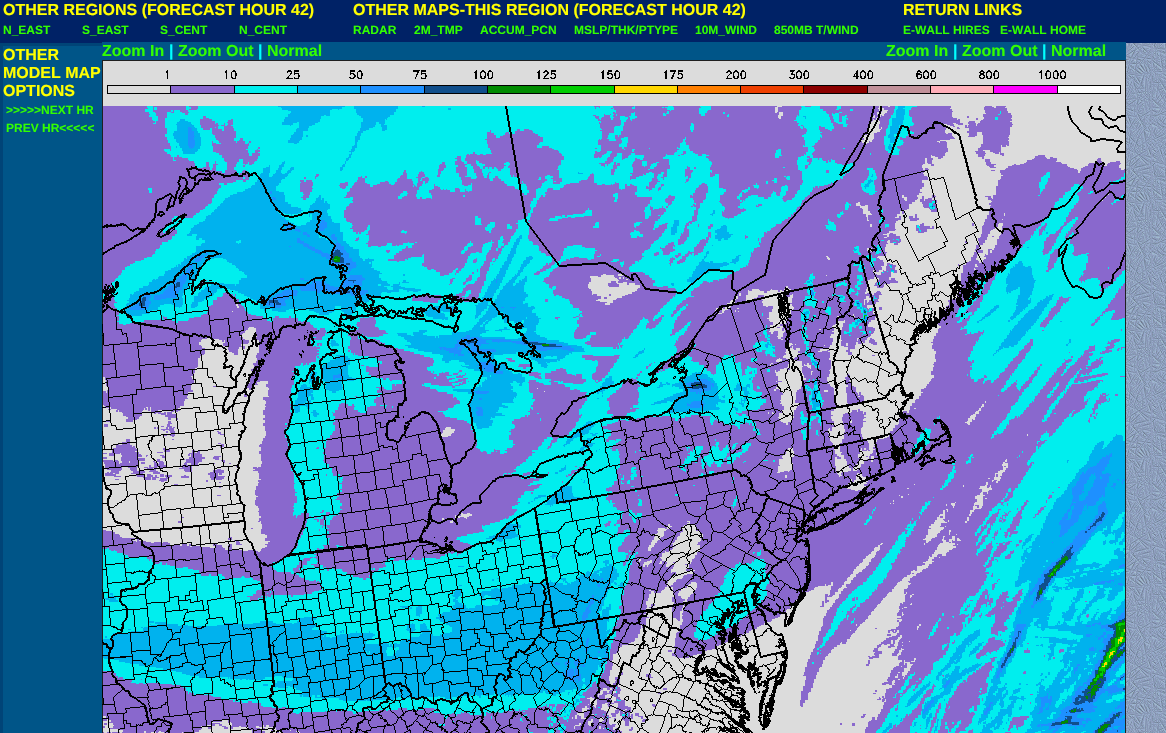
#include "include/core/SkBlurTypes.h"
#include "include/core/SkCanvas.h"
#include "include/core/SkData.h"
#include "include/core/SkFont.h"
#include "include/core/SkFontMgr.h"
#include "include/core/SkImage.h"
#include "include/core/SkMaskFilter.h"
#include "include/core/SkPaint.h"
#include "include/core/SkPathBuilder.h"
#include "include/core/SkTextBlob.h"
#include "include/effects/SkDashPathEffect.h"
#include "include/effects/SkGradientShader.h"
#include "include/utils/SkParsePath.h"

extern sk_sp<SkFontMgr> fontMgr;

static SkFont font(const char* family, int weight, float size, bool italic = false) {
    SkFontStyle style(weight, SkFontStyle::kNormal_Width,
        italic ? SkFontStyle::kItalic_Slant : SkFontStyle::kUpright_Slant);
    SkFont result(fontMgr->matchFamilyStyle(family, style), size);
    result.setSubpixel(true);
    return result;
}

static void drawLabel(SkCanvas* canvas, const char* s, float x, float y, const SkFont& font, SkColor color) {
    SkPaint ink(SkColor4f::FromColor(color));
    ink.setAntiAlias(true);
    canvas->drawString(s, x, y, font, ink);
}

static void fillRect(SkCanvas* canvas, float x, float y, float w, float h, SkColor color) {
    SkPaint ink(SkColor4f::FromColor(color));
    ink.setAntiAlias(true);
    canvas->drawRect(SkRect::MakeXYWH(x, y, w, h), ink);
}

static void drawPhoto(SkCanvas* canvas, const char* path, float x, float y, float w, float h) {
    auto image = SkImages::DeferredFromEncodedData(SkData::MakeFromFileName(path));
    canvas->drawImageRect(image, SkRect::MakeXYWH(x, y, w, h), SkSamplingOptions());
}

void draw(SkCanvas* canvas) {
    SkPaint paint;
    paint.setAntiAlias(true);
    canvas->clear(0xFFFFFFFF);
    drawPhoto(canvas, "assets/img1.png", 1126, 43, 40, 690);
    fillRect(canvas, 0, 0, 1166, 43, 0xFF002266);
    SkFont font1 = font("Liberation Sans", 700, 16);
    drawLabel(canvas, "OTHER REGIONS (FORECAST HOUR 42)", 3, 15, font1, 0xFFFFFF00);
    SkFont font2 = font("Liberation Sans", 700, 12);
    drawLabel(canvas, "N_EAST", 3, 34, font2, 0xFF33FF00);
    drawLabel(canvas, "S_EAST", 82, 34, font2, 0xFF33FF00);
    drawLabel(canvas, "S_CENT", 160, 34, font2, 0xFF33FF00);
    drawLabel(canvas, "N_CENT", 239, 34, font2, 0xFF33FF00);
    drawLabel(canvas, "OTHER MAPS-THIS REGION (FORECAST HOUR 42)", 353, 15, font1, 0xFFFFFF00);
    drawLabel(canvas, "RADAR", 353, 34, font2, 0xFF33FF00);
    drawLabel(canvas, "2M_TMP", 414, 34, font2, 0xFF33FF00);
    drawLabel(canvas, "ACCUM_PCN", 480, 34, font2, 0xFF33FF00);
    drawLabel(canvas, "MSLP/THK/PTYPE", 574, 34, font2, 0xFF33FF00);
    drawLabel(canvas, "10M_WIND", 695, 34, font2, 0xFF33FF00);
    drawLabel(canvas, "850MB T/WIND", 774, 34, font2, 0xFF33FF00);
    drawLabel(canvas, "RETURN LINKS", 903, 15, font1, 0xFFFFFF00);
    drawLabel(canvas, "E-WALL HIRES", 903, 34, font2, 0xFF33FF00);
    drawLabel(canvas, "E-WALL HOME", 1000, 34, font2, 0xFF33FF00);
    fillRect(canvas, 3, 46, 99, 687, 0xFF005588);
    paint.setStroke(true);
    paint.setStrokeWidth(3);
    paint.setColor(0xFF004477);
    canvas->drawRect(SkRect::MakeXYWH(1.5f, 44.5f, 111, 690), paint);
    drawLabel(canvas, "OTHER", 3, 60, font1, 0xFFFFFF00);
    drawLabel(canvas, "MODEL MAP", 3, 78, font1, 0xFFFFFF00);
    drawLabel(canvas, "OPTIONS", 3, 96, font1, 0xFFFFFF00);
    drawLabel(canvas, ">>>>>NEXT HR", 6, 114, font2, 0xFF33FF00);
    drawLabel(canvas, "PREV HR<<<<<", 6, 132, font2, 0xFF33FF00);
    fillRect(canvas, 102, 42, 1024, 18, 0xFF005588);
    drawLabel(canvas, "Zoom In", 102, 56, font1, 0xFF33FF00);
    drawLabel(canvas, "|", 169, 56, font1, 0xFF00FFFF);
    drawLabel(canvas, "Zoom Out", 178, 56, font1, 0xFF33FF00);
    drawLabel(canvas, "|", 258, 56, font1, 0xFF00FFFF);
    drawLabel(canvas, "Normal", 267, 56, font1, 0xFF33FF00);
    drawLabel(canvas, "Zoom In", 886, 56, font1, 0xFF33FF00);
    drawLabel(canvas, "|", 953, 56, font1, 0xFF00FFFF);
    drawLabel(canvas, "Zoom Out", 962, 56, font1, 0xFF33FF00);
    drawLabel(canvas, "|", 1042, 56, font1, 0xFF00FFFF);
    drawLabel(canvas, "Normal", 1051, 56, font1, 0xFF33FF00);
    drawPhoto(canvas, "assets/img2.png", 102, 60, 1024, 673);
}
